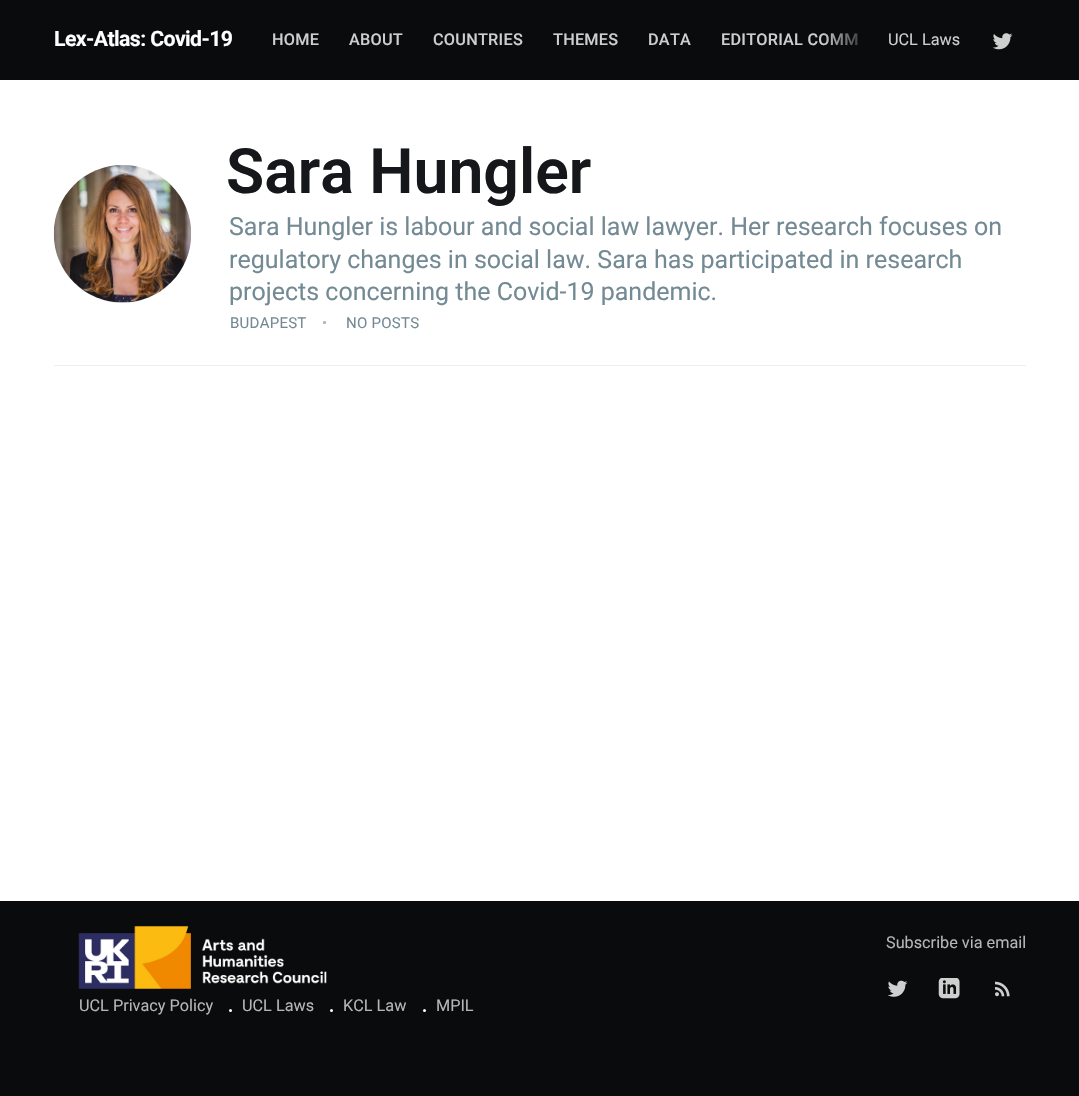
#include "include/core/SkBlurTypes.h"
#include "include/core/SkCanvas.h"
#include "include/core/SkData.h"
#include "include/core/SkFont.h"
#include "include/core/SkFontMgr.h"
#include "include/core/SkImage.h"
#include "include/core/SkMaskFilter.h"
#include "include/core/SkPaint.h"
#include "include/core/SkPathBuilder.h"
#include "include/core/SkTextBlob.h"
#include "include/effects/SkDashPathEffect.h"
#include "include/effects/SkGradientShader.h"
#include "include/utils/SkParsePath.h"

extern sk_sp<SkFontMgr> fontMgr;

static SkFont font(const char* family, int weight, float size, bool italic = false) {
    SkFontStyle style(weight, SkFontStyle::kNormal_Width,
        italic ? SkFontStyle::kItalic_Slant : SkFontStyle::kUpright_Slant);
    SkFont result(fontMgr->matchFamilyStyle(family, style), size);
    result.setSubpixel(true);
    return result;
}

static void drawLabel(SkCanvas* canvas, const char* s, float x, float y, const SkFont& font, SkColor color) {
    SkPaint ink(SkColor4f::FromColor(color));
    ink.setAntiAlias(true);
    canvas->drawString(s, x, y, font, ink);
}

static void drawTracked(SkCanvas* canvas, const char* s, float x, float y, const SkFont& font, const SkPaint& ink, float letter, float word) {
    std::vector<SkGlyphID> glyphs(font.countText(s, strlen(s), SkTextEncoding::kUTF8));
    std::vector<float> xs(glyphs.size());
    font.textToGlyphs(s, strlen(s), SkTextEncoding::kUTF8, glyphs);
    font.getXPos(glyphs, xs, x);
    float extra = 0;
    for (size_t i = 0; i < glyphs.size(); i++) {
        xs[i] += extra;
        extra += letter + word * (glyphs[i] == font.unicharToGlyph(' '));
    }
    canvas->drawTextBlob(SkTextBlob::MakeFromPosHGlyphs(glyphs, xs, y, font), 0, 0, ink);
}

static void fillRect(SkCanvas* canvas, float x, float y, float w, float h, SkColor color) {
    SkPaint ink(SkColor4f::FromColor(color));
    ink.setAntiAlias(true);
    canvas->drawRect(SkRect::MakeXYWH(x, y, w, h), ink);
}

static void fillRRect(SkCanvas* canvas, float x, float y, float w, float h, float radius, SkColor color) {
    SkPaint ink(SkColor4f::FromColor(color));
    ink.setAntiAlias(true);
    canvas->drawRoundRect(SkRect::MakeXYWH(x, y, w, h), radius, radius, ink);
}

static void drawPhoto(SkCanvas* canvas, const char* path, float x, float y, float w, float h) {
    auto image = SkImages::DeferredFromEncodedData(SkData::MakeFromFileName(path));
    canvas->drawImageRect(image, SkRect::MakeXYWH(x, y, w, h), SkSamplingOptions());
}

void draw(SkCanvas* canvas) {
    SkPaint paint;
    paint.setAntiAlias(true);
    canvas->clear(0xFFFFFFFF);
    fillRect(canvas, 0, 0, 1079, 80, 0xFF0A0B0C);
    SkFont font1 = font("Roboto", 700, 21.25f);
    paint.setColor(0xFFFFFFFF);
    drawTracked(canvas, "Lex-Atlas: Covid-19", 54, 46, font1, paint, -0.6f, 0);
    SkFont font2 = font("Roboto", 500, 16.25f);
    paint.setColor(0xFFCECECE);
    drawTracked(canvas, "HOME", 272, 45, font2, paint, 0.25f, 0);
    drawTracked(canvas, "ABOUT", 349, 45, font2, paint, 0.25f, 0);
    drawTracked(canvas, "COUNTRIES", 433, 45, font2, paint, 0.25f, 0);
    drawTracked(canvas, "THEMES", 553, 45, font2, paint, 0.25f, 0);
    drawTracked(canvas, "DATA", 648, 45, font2, paint, 0.25f, 0);
    drawTracked(canvas, "EDITORIAL COMM", 721, 45, font2, paint, 0.25f, 0);
    {
        const SkColor colors[] = {0x000A0B0C, 0xFF0A0B0C};
        const float stops[] = {0, 1};
        const SkPoint ends[] = {{823, 83}, {873, 83}};
        paint.setShader(SkGradientShader::MakeLinear(ends, colors, stops, 2, SkTileMode::kClamp));
        paint.setAlpha(255);
    }
    canvas->drawRect(SkRect::MakeXYWH(824, 33, 34, 12), paint);
    SkFont font3 = font("Roboto", 400, 16.25f);
    drawLabel(canvas, "UCL Laws", 888, 45, font3, 0xFFCECECE);
    drawPhoto(canvas, "assets/img1.png", 992, 33, 21, 17);
    fillRect(canvas, 54, 365, 972, 1, 0xFFEAEFF1);
    fillRRect(canvas, 54, 165, 137, 138, 68.5f, 0xFFE4EAED);
    drawPhoto(canvas, "assets/img2.png", 53, 165, 139, 138);
    SkFont font4 = font("Roboto", 600, 62.5f);
    drawLabel(canvas, "Sara Hungler", 226, 193, font4, 0xFF15171A);
    SkFont font5 = font("Roboto", 400, 25);
    drawLabel(canvas, "Sara Hungler is labour and social law lawyer. Her research focuses on", 229, 235, font5, 0xFF738A94);
    drawLabel(canvas, "regulatory changes in social law. Sara has participated in research", 229, 268, font5, 0xFF738A94);
    drawLabel(canvas, "projects concerning the Covid-19 pandemic.", 229, 300, font5, 0xFF738A94);
    SkFont font6 = font("Roboto", 400, 15);
    paint.setShader(nullptr);
    paint.setColor(0xFF738A94);
    drawTracked(canvas, "BUDAPEST", 230, 328, font6, paint, 0.25f, 0);
    paint.setColor(0xFFABB9BF);
    drawTracked(canvas, "•", 322, 328, font6, paint, 0.25f, 0);
    paint.setColor(0xFF738A94);
    drawTracked(canvas, "NO POSTS", 346, 328, font6, paint, 0.25f, 0);
    fillRect(canvas, 0, 901, 1079, 195, 0xFF0A0B0C);
    drawLabel(canvas, "Subscribe via email", 886, 948, font3, 0xFFB6B6B6);
    drawPhoto(canvas, "assets/img3.png", 888, 980, 20, 17);
    drawPhoto(canvas, "assets/img4.png", 938, 978, 22, 21);
    drawPhoto(canvas, "assets/img5.png", 995, 981, 15, 16);
    drawPhoto(canvas, "assets/img6.png", 78, 926, 249, 63);
    drawLabel(canvas, "UCL Privacy Policy", 79, 1011, font3, 0xFFB6B6B6);
    paint.setColor(0xFFFFFFFF);
    canvas->drawCircle(230.5f, 1010.5f, 1.5f, paint);
    drawLabel(canvas, "UCL Laws", 242, 1011, font3, 0xFFB6B6B6);
    canvas->drawCircle(331.5f, 1010.5f, 1.5f, paint);
    drawLabel(canvas, "KCL Law", 343, 1011, font3, 0xFFB6B6B6);
    canvas->drawCircle(424.5f, 1010.5f, 1.5f, paint);
    drawLabel(canvas, "MPIL", 436, 1011, font3, 0xFFB6B6B6);
}
